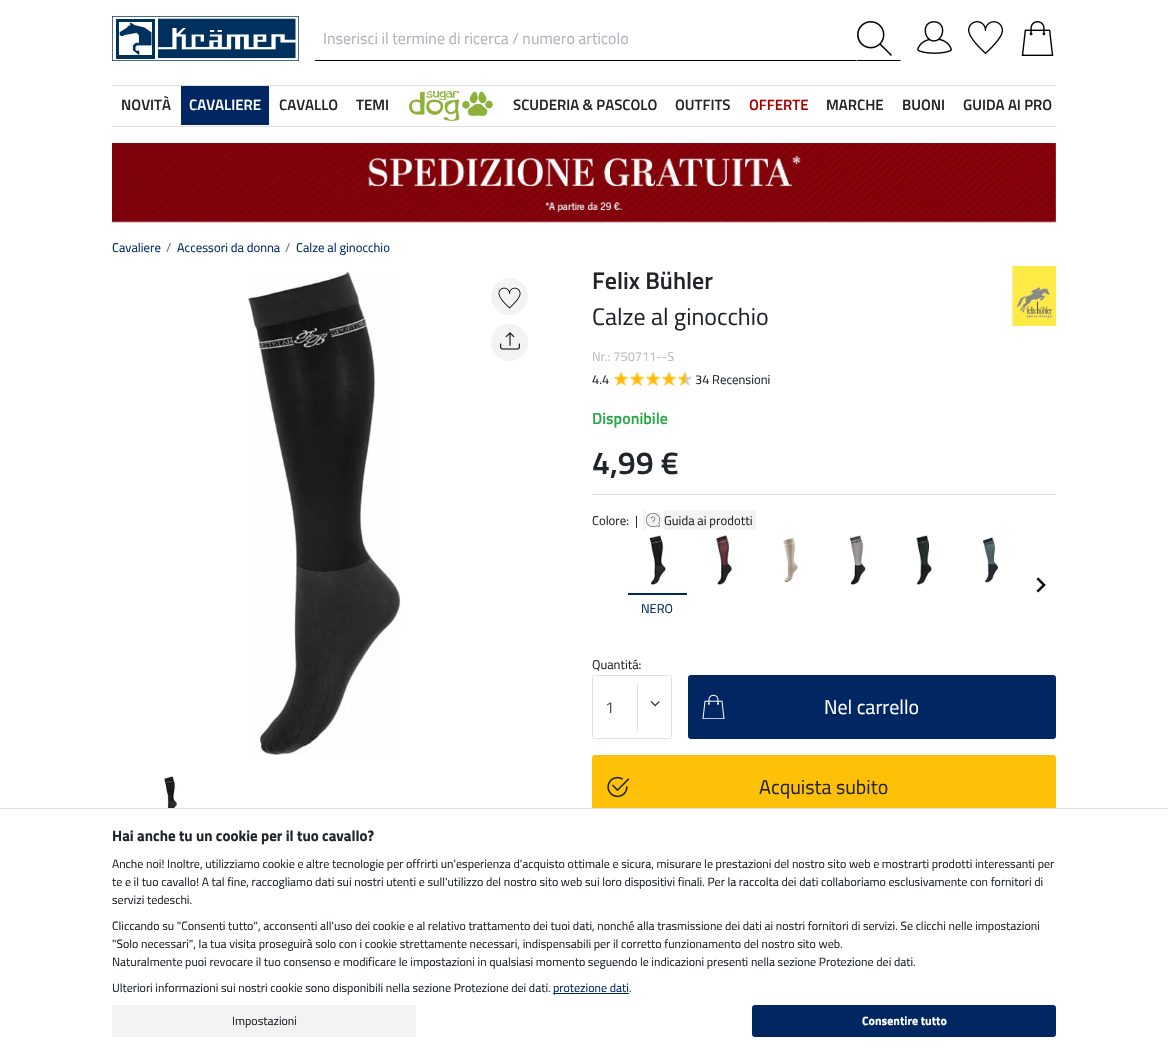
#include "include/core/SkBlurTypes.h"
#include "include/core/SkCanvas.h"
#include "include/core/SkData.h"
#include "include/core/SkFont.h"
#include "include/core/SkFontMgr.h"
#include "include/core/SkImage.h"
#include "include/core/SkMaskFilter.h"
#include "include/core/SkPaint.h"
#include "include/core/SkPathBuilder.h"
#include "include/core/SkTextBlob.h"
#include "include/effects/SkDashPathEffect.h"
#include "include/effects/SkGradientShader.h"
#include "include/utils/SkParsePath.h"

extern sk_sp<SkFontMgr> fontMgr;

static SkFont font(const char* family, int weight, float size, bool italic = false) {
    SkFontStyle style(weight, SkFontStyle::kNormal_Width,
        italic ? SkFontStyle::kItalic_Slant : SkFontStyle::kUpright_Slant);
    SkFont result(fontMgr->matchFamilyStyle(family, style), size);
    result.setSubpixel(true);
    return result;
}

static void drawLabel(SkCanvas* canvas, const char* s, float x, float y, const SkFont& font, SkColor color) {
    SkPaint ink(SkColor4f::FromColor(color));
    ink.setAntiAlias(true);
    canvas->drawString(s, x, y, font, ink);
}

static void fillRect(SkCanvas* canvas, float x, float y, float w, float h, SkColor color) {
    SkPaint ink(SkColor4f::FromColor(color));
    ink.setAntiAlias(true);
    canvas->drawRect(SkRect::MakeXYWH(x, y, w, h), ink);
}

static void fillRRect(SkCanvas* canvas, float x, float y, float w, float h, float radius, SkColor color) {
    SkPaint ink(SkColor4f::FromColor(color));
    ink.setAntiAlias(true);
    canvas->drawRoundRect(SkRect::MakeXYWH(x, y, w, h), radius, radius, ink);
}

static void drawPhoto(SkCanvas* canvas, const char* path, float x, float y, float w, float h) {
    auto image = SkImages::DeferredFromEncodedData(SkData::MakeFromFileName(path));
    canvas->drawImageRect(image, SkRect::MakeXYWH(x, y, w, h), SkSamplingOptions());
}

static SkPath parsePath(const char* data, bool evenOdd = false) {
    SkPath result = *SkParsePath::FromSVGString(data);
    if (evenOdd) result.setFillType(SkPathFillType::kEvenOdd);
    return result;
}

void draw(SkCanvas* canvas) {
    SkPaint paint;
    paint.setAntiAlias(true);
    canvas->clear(0xFFFFFFFF);
    drawPhoto(canvas, "assets/img1.png", 112, 16, 187, 45);
    fillRect(canvas, 315, 60, 542, 1, 0xFF000000);
    SkFont font1 = font("Titillium Web", 400, 16);
    drawLabel(canvas, "Inserisci il termine di ricerca / numero articolo", 323, 44, font1, 0xFFADB5BD);
    fillRect(canvas, 856, 60, 1, 1, 0xFFFFFFFF);
    paint.setColor(0xFF000000);
    canvas->drawPath(parsePath("M901 61H856L857 60H900Z"), paint);
    drawPhoto(canvas, "assets/img2.png", 857, 21, 35, 35);
    drawPhoto(canvas, "assets/img3.png", 917, 21, 35, 33);
    drawPhoto(canvas, "assets/img4.png", 968, 21, 35, 33);
    drawPhoto(canvas, "assets/img5.png", 1021, 21, 33, 35);
    fillRect(canvas, 112, 85, 944, 1, 0xFFDEE2E6);
    fillRect(canvas, 112, 126, 944, 1, 0xFFDEE2E6);
    SkFont font2 = font("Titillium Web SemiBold", 600, 15);
    drawLabel(canvas, "NOVITÀ", 121, 110, font2, 0xFF212529);
    fillRect(canvas, 181, 86, 88, 39, 0xFF002762);
    drawLabel(canvas, "CAVALIERE", 189, 110, font2, 0xFFFFFFFF);
    drawLabel(canvas, "CAVALLO", 279, 110, font2, 0xFF212529);
    drawLabel(canvas, "TEMI", 356, 110, font2, 0xFF212529);
    drawPhoto(canvas, "assets/img6.png", 409, 91, 84, 30);
    drawLabel(canvas, "SCUDERIA & PASCOLO", 513, 110, font2, 0xFF212529);
    drawLabel(canvas, "OUTFITS", 675, 110, font2, 0xFF212529);
    drawLabel(canvas, "OFFERTE", 749, 110, font2, 0xFFAA0000);
    drawLabel(canvas, "MARCHE", 826, 110, font2, 0xFF212529);
    drawLabel(canvas, "BUONI", 902, 110, font2, 0xFF212529);
    drawLabel(canvas, "GUIDA AI PRO", 963, 110, font2, 0xFF212529);
    drawPhoto(canvas, "assets/img7.png", 112, 143, 944, 80);
    SkFont font3 = font("Titillium Web", 400, 12.75f);
    drawLabel(canvas, "Cavaliere", 112, 252, font3, 0xFF002762);
    drawLabel(canvas, "/", 166, 252, font3, 0xFF6C757D);
    drawLabel(canvas, "Accessori da donna", 177, 252, font3, 0xFF002762);
    drawLabel(canvas, "/", 285, 252, font3, 0xFF6C757D);
    drawLabel(canvas, "Calze al ginocchio", 296, 252, font3, 0xFF002762);
    drawPhoto(canvas, "assets/img8.png", 248, 271, 153, 484);
    paint.setColor(0xFFF3F3F3);
    canvas->drawCircle(509.5f, 296.5f, 18, paint);
    paint.setStroke(true);
    paint.setStrokeWidth(1);
    canvas->drawCircle(509.5f, 296.5f, 18, paint);
    drawPhoto(canvas, "assets/img9.png", 498, 287, 23, 22);
    paint.setStroke(false);
    canvas->drawCircle(509.5f, 342.5f, 18, paint);
    paint.setStroke(true);
    canvas->drawCircle(509.5f, 342.5f, 18, paint);
    drawPhoto(canvas, "assets/img10.png", 500, 332, 20, 18);
    drawPhoto(canvas, "assets/img11.png", 164, 776, 13, 32);
    SkFont font4 = font("Titillium Web SemiBold", 600, 24);
    drawLabel(canvas, "Felix Bühler", 592, 289, font4, 0xFF212529);
    SkFont font5 = font("Titillium Web", 400, 24);
    drawLabel(canvas, "Calze al ginocchio", 592, 325, font5, 0xFF212529);
    drawLabel(canvas, "Nr.: 750711--S", 592, 361, font3, 0xFFBBBBBB);
    drawLabel(canvas, "4.4", 592, 384, font3, 0xFF212529);
    drawPhoto(canvas, "assets/img12.png", 613, 371, 79, 15);
    drawLabel(canvas, "34 Recensioni", 695, 384, font3, 0xFF212529);
    drawPhoto(canvas, "assets/img13.png", 1011, 266, 45, 60);
    SkFont font6 = font("Titillium Web SemiBold", 600, 16);
    drawLabel(canvas, "Disponibile", 592, 424, font6, 0xFF28A745);
    SkFont font7 = font("Titillium Web SemiBold", 600, 32);
    drawLabel(canvas, "4,99 €", 592, 474, font7, 0xFF212529);
    fillRect(canvas, 592, 494, 464, 1, 0xFFDEE2E6);
    drawLabel(canvas, "Colore:", 592, 525, font3, 0xFF212529);
    drawLabel(canvas, "|", 635, 525, font3, 0xFF212529);
    fillRect(canvas, 646, 513, 14, 14, 0xFFF3F3F3);
    drawPhoto(canvas, "assets/img14.png", 646, 513, 14, 14);
    fillRect(canvas, 664, 510, 92, 20, 0xFFF3F3F3);
    drawLabel(canvas, "Guida ai prodotti", 664, 525, font3, 0xFF212529);
    fillRect(canvas, 643, 510, 3, 20, 0xFFF3F3F3);
    drawPhoto(canvas, "assets/img15.png", 1036, 577, 10, 16);
    drawPhoto(canvas, "assets/img16.png", 715, 535, 18, 50);
    drawPhoto(canvas, "assets/img17.png", 783, 537, 15, 46);
    drawPhoto(canvas, "assets/img18.png", 849, 535, 17, 50);
    drawPhoto(canvas, "assets/img19.png", 916, 535, 16, 50);
    drawPhoto(canvas, "assets/img20.png", 983, 537, 16, 46);
    drawPhoto(canvas, "assets/img21.png", 649, 535, 17, 50);
    fillRect(canvas, 628, 593, 59, 2, 0xFF002762);
    drawLabel(canvas, "NERO", 641, 613, font3, 0xFF002762);
    drawLabel(canvas, "Quantitá:", 592, 669, font3, 0xFF212529);
    paint.setColor(0xFFDEE2E6);
    canvas->drawRoundRect(SkRect::MakeXYWH(592.5f, 675.5f, 79, 63), 2, 2, paint);
    drawLabel(canvas, "1", 605, 713, font1, 0xFF495057);
    fillRect(canvas, 637, 683, 1, 48, 0xFFDEE2E6);
    drawPhoto(canvas, "assets/img22.png", 650, 701, 10, 6);
    paint.setStroke(false);
    paint.setColor(0xFF002762);
    canvas->drawRoundRect(SkRect::MakeXYWH(688.5f, 675.5f, 367, 63), 2, 2, paint);
    paint.setStroke(true);
    canvas->drawRoundRect(SkRect::MakeXYWH(688.5f, 675.5f, 367, 63), 2, 2, paint);
    drawPhoto(canvas, "assets/img23.png", 702, 694, 23, 25);
    SkFont font8 = font("Titillium Web", 400, 20);
    drawLabel(canvas, "Nel carrello", 824, 714, font8, 0xFFFFFFFF);
    paint.setStroke(false);
    paint.setColor(0xFFFFC107);
    canvas->drawRoundRect(SkRect::MakeXYWH(592.5f, 755.5f, 463, 63), 2, 2, paint);
    paint.setStroke(true);
    canvas->drawRoundRect(SkRect::MakeXYWH(592.5f, 755.5f, 463, 63), 2, 2, paint);
    drawPhoto(canvas, "assets/img24.png", 607, 776, 23, 22);
    drawLabel(canvas, "Acquista subito", 759, 794, font8, 0xFF212529);
    fillRect(canvas, 592, 809, 464, 10, 0xFFFFFFFF);
    fillRect(canvas, 0, 808, 1168, 1, 0xFFDEE2E6);
    SkFont font9 = font("Titillium Web", 700, 15);
    drawLabel(canvas, "Hai anche tu un cookie per il tuo cavallo?", 112, 841, font9, 0xFF212529);
    SkFont font10 = font("Titillium Web", 400, 12);
    drawLabel(canvas, "Anche noi! Inoltre, utilizziamo cookie e altre tecnologie per offrirti un'esperienza d'acquisto ottimale e sicura, misurare le prestazioni del nostro sito web e mostrarti prodotti interessanti per", 112, 868, font10, 0xFF212529);
    drawLabel(canvas, "te e il tuo cavallo! A tal fine, raccogliamo dati sui nostri utenti e sull'utilizzo del nostro sito web sui loro dispositivi finali. Per la raccolta dei dati collaboriamo esclusivamente con fornitori di", 112, 886, font10, 0xFF212529);
    drawLabel(canvas, "servizi tedeschi.", 112, 904, font10, 0xFF212529);
    drawLabel(canvas, "Cliccando su \"Consenti tutto\", acconsenti all'uso dei cookie e al relativo trattamento dei tuoi dati, nonché alla trasmissione dei dati ai nostri fornitori di servizi. Se clicchi nelle impostazioni", 112, 930, font10, 0xFF212529);
    drawLabel(canvas, "\"Solo necessari\", la tua visita proseguirà solo con i cookie strettamente necessari, indispensabili per il corretto funzionamento del nostro sito web.", 112, 948, font10, 0xFF212529);
    drawLabel(canvas, "Naturalmente puoi revocare il tuo consenso e modificare le impostazioni in qualsiasi momento seguendo le indicazioni presenti nella sezione Protezione dei dati.", 112, 966, font10, 0xFF212529);
    drawLabel(canvas, "Ulteriori informazioni sui nostri cookie sono disponibili nella sezione Protezione dei dati.", 112, 992, font10, 0xFF212529);
    fillRect(canvas, 553, 993, 76, 1, 0xFF002762);
    drawLabel(canvas, "protezione dati", 553, 992, font10, 0xFF002762);
    drawLabel(canvas, ".", 629, 992, font10, 0xFF212529);
    fillRRect(canvas, 112, 1005, 304, 32, 2.5f, 0xFFF3F3F3);
    drawLabel(canvas, "Impostazioni", 232, 1025, font10, 0xFF212529);
    paint.setStroke(false);
    paint.setColor(0xFF002762);
    canvas->drawRoundRect(SkRect::MakeXYWH(752.5f, 1005.5f, 303, 31), 2, 2, paint);
    paint.setStroke(true);
    canvas->drawRoundRect(SkRect::MakeXYWH(752.5f, 1005.5f, 303, 31), 2, 2, paint);
    SkFont font11 = font("Titillium Web", 700, 12);
    drawLabel(canvas, "Consentire tutto", 862, 1025, font11, 0xFFFFFFFF);
}
